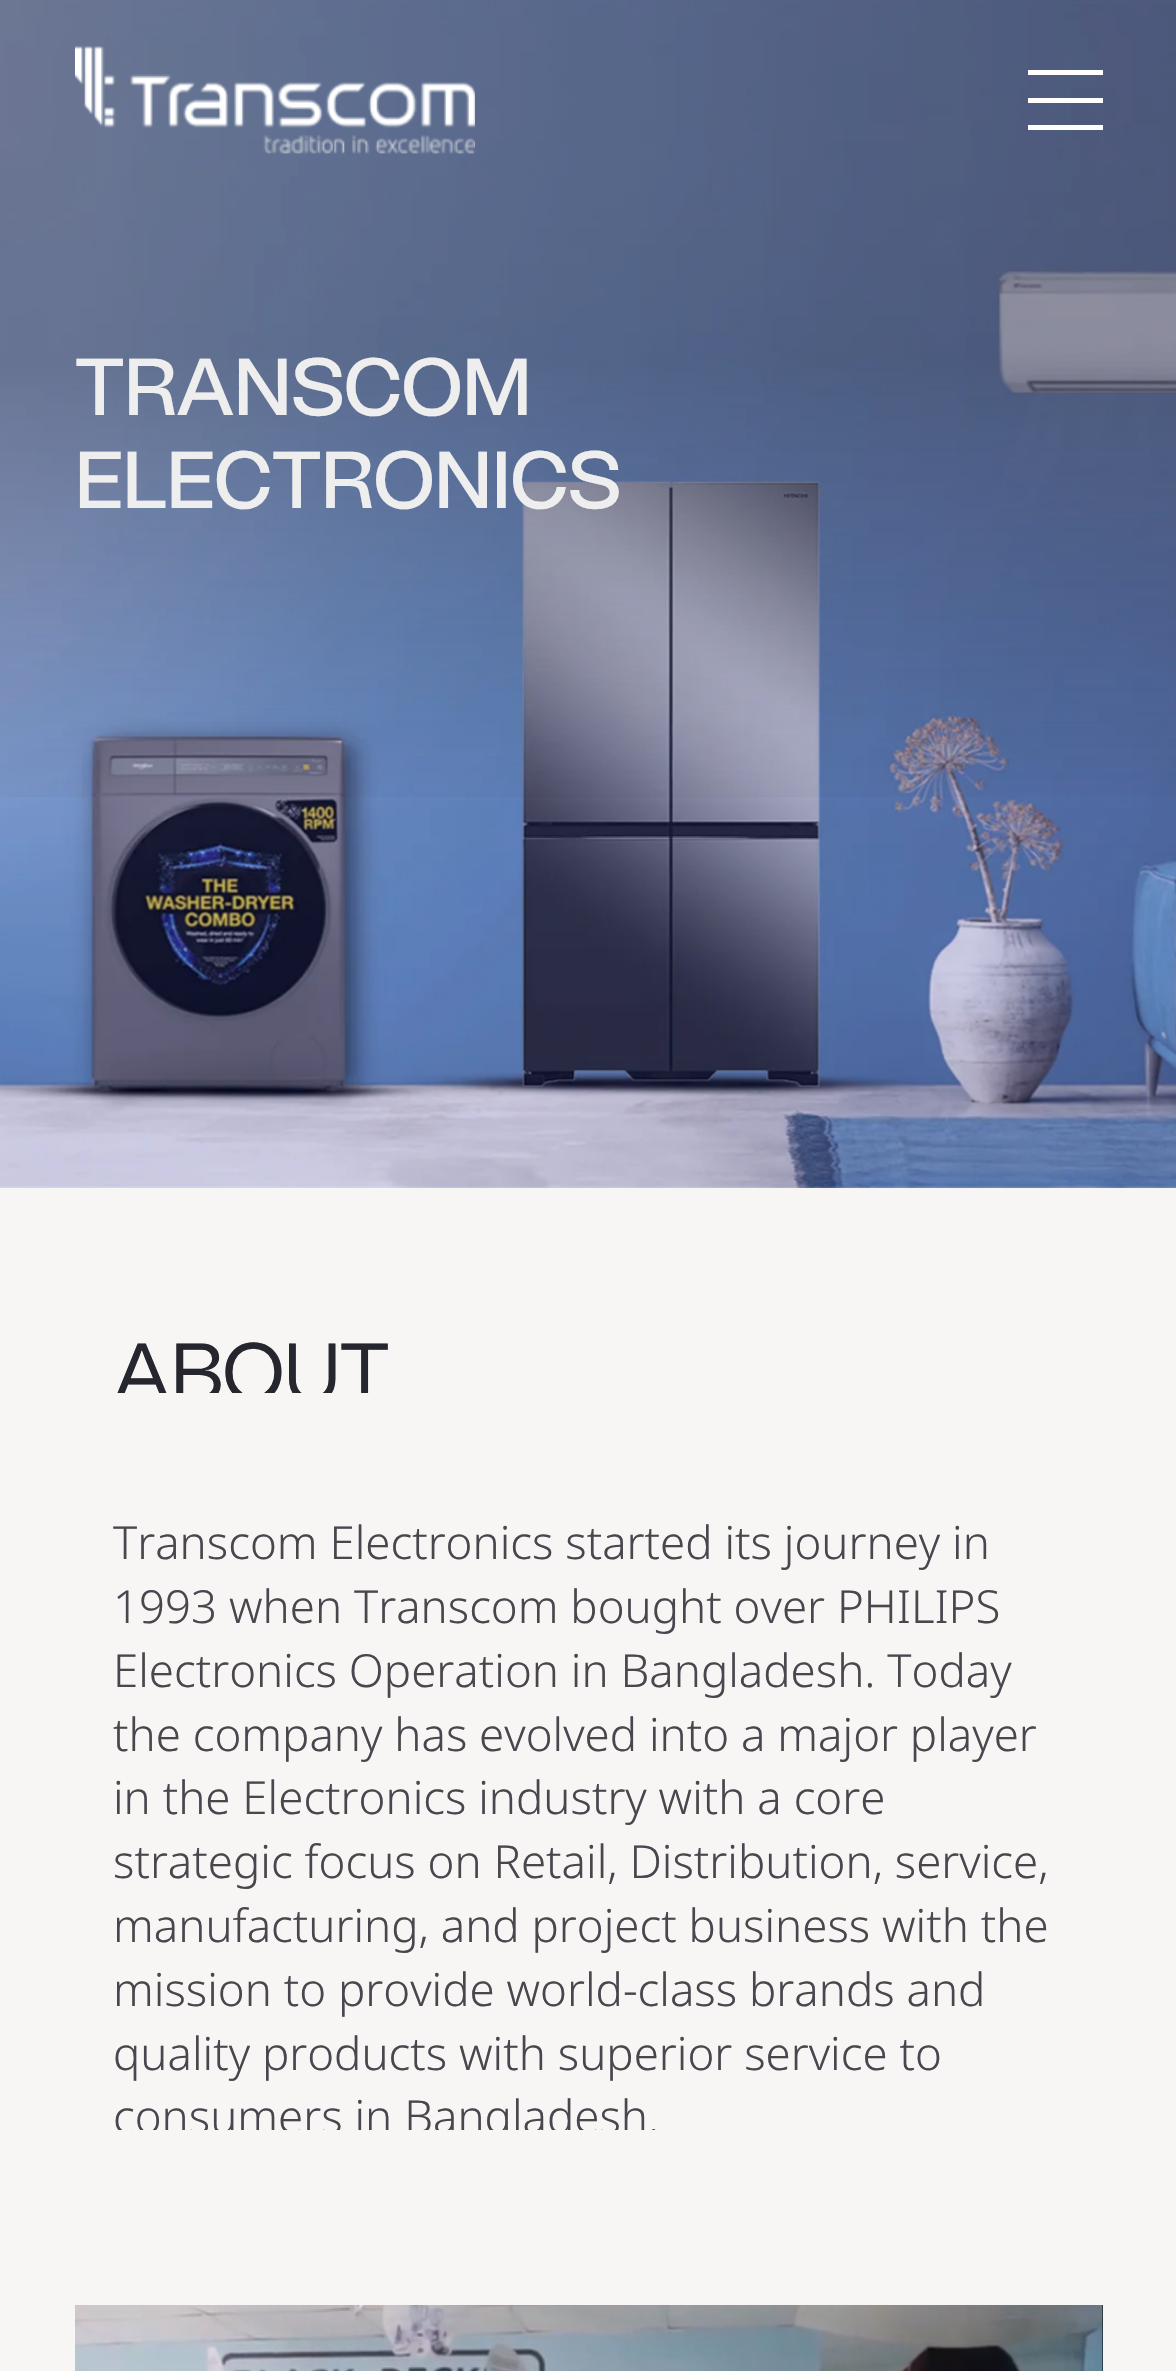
#include "include/core/SkBlurTypes.h"
#include "include/core/SkCanvas.h"
#include "include/core/SkData.h"
#include "include/core/SkFont.h"
#include "include/core/SkFontMgr.h"
#include "include/core/SkImage.h"
#include "include/core/SkMaskFilter.h"
#include "include/core/SkPaint.h"
#include "include/core/SkPathBuilder.h"
#include "include/core/SkTextBlob.h"
#include "include/effects/SkDashPathEffect.h"
#include "include/effects/SkGradientShader.h"
#include "include/utils/SkParsePath.h"

extern sk_sp<SkFontMgr> fontMgr;

static SkFont font(const char* family, int weight, float size, bool italic = false) {
    SkFontStyle style(weight, SkFontStyle::kNormal_Width,
        italic ? SkFontStyle::kItalic_Slant : SkFontStyle::kUpright_Slant);
    SkFont result(fontMgr->matchFamilyStyle(family, style), size);
    result.setSubpixel(true);
    return result;
}

static void drawLabel(SkCanvas* canvas, const char* s, float x, float y, const SkFont& font, SkColor color) {
    SkPaint ink(SkColor4f::FromColor(color));
    ink.setAntiAlias(true);
    canvas->drawString(s, x, y, font, ink);
}

static void fillRect(SkCanvas* canvas, float x, float y, float w, float h, SkColor color) {
    SkPaint ink(SkColor4f::FromColor(color));
    ink.setAntiAlias(true);
    canvas->drawRect(SkRect::MakeXYWH(x, y, w, h), ink);
}

static void drawPhoto(SkCanvas* canvas, const char* path, float x, float y, float w, float h) {
    auto image = SkImages::DeferredFromEncodedData(SkData::MakeFromFileName(path));
    canvas->drawImageRect(image, SkRect::MakeXYWH(x, y, w, h), SkSamplingOptions());
}

void draw(SkCanvas* canvas) {
    SkPaint paint;
    paint.setAntiAlias(true);
    canvas->clear(0xFFFFFFFF);
    drawPhoto(canvas, "assets/img2.png", 0, 0, 1176, 1188);
    {
        const SkColor colors[] = {0x4D000000, 0x00000000};
        const float stops[] = {0.3f, 0.7f};
        const SkPoint ends[] = {{589, 0}, {589, 1188}};
        paint.setShader(SkGradientShader::MakeLinear(ends, colors, stops, 2, SkTileMode::kClamp));
        paint.setAlpha(255);
    }
    canvas->drawRect(SkRect::MakeXYWH(0, 0, 1176, 797), paint);
    drawPhoto(canvas, "assets/img1.png", 75, 46, 400, 108);
    fillRect(canvas, 1028, 70, 75, 5, 0xFFFFFFFF);
    fillRect(canvas, 1028, 98, 75, 5, 0xFFFFFFFF);
    fillRect(canvas, 1028, 125, 75, 5, 0xFFFFFFFF);
    SkFont font1 = font("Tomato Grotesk", 500, 80.5f);
    drawLabel(canvas, "TRANSCOM", 75, 415, font1, 0xFFEFEEEE);
    drawLabel(canvas, "ELECTRONICS", 75, 508, font1, 0xFFEFEEEE);
    fillRect(canvas, 0, 1188, 1176, 1183, 0xFFF8F6F5);
    canvas->save();
    canvas->clipRect(SkRect::MakeXYWH(113, 1288, 952, 105));
    SkFont font2 = font("Tomato Grotesk", 400, 82);
    drawLabel(canvas, "ABOUT", 113, 1401, font2, 0xFF26262E);
    canvas->restore();
    canvas->save();
    canvas->clipRect(SkRect::MakeXYWH(113, 1443, 952, 687));
    SkFont font3 = font("Noto Sans", 300, 45.6f);
    drawLabel(canvas, "Transcom Electronics started its journey in", 113, 1559, font3, 0xFF48474E);
    canvas->restore();
    drawLabel(canvas, "1993 when Transcom bought over PHILIPS", 113, 1623, font3, 0xFF48474E);
    drawLabel(canvas, "Electronics Operation in Bangladesh. Today", 113, 1687, font3, 0xFF48474E);
    drawLabel(canvas, "the company has evolved into a major player", 113, 1751, font3, 0xFF48474E);
    drawLabel(canvas, "in the Electronics industry with a core", 113, 1814, font3, 0xFF48474E);
    drawLabel(canvas, "strategic focus on Retail, Distribution, service,", 113, 1878, font3, 0xFF48474E);
    drawLabel(canvas, "manufacturing, and project business with the", 113, 1942, font3, 0xFF48474E);
    drawLabel(canvas, "mission to provide world-class brands and", 113, 2006, font3, 0xFF48474E);
    drawLabel(canvas, "quality products with superior service to", 113, 2070, font3, 0xFF48474E);
    canvas->save();
    canvas->clipRect(SkRect::MakeXYWH(113, 1443, 952, 687));
    drawLabel(canvas, "consumers in Bangladesh.", 113, 2133, font3, 0xFF48474E);
    canvas->restore();
    fillRect(canvas, 1102, 2305, 1, 66, 0xFF000000);
    drawPhoto(canvas, "assets/img3.png", 75, 2305, 1028, 66);
}
